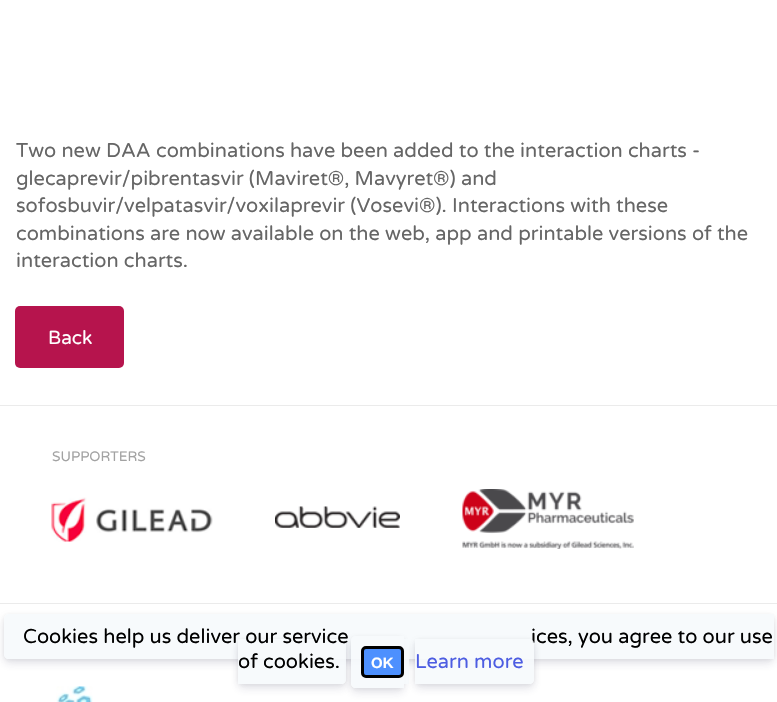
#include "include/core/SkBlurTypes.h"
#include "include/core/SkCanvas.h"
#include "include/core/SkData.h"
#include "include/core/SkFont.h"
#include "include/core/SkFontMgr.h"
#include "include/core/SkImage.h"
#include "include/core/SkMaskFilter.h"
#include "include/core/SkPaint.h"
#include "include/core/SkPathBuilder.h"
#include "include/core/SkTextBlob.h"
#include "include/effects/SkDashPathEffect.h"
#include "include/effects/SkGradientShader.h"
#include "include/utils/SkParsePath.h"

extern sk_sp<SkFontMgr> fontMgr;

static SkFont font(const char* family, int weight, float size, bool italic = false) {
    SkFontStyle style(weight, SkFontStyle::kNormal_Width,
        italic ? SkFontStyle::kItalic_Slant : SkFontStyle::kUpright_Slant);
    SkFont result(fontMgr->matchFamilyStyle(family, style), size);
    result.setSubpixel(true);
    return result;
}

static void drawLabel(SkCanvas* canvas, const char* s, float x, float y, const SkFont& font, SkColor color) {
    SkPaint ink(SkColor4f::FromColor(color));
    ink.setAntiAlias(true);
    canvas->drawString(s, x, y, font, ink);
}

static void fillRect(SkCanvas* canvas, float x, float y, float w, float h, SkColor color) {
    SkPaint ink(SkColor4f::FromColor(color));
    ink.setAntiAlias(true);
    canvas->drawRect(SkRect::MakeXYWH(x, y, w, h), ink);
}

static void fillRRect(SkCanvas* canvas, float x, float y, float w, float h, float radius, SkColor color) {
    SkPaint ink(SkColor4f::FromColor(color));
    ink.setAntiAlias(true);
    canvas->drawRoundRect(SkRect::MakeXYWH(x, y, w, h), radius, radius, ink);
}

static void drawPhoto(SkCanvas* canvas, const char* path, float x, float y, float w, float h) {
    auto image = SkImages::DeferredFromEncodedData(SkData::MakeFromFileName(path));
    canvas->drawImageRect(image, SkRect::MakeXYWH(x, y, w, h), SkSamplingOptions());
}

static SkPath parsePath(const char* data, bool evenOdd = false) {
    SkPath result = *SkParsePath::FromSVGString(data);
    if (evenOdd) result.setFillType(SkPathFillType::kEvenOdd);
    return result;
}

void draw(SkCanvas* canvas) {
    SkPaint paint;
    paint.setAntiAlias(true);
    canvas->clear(0xFFFFFFFF);
    SkFont font1 = font("Varela Round", 400, 20);
    drawLabel(canvas, "Two new DAA combinations have been added to the interaction charts -", 16, 157, font1, 0xFF666666);
    drawLabel(canvas, "glecaprevir/pibrentasvir (Maviret®, Mavyret®) and", 16, 185, font1, 0xFF666666);
    drawLabel(canvas, "sofosbuvir/velpatasvir/voxilaprevir (Vosevi®). Interactions with these", 16, 212, font1, 0xFF666666);
    drawLabel(canvas, "combinations are now available on the web, app and printable versions of the", 16, 240, font1, 0xFF666666);
    drawLabel(canvas, "interaction charts.", 16, 267, font1, 0xFF666666);
    fillRRect(canvas, 15, 306, 109, 62, 5, 0xFFB6144D);
    SkFont font2 = font("Varela Round", 400, 19);
    drawLabel(canvas, "Back", 48, 344, font2, 0xFFFFFFFF);
    fillRect(canvas, 0, 405, 777, 1, 0xFFEBEBEB);
    SkFont font3 = font("Varela Round", 400, 13.75f);
    drawLabel(canvas, "SUPPORTERS", 52, 461, font3, 0xFFA2A2A2);
    drawPhoto(canvas, "assets/img1.png", 51, 497, 162, 45);
    drawPhoto(canvas, "assets/img2.png", 275, 506, 125, 22);
    drawPhoto(canvas, "assets/img3.png", 462, 489, 172, 60);
    fillRect(canvas, 0, 603, 777, 1, 0xFFEBEBEB);
    drawPhoto(canvas, "assets/img4.png", 56, 686, 37, 16);
    canvas->save();
    canvas->clipPath(parsePath("M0 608H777V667H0ZM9 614H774V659H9C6 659 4 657 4 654V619C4 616 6 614 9 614Z", true), true);
    paint.setColor(0x14000000);
    paint.setMaskFilter(SkMaskFilter::MakeBlur(kNormal_SkBlurStyle, 2));
    canvas->drawRoundRect(SkRect::MakeXYWH(4, 615, 770, 45), 5, 5, paint);
    paint.setMaskFilter(nullptr);
    canvas->restore();
    canvas->save();
    canvas->clipPath(parsePath("M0 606H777V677H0ZM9 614H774V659H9C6 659 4 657 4 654V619C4 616 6 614 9 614Z", true), true);
    paint.setColor(0x1C32325D);
    paint.setMaskFilter(SkMaskFilter::MakeBlur(kNormal_SkBlurStyle, 4));
    canvas->drawRoundRect(SkRect::MakeXYWH(4, 619, 770, 45), 5, 5, paint);
    paint.setMaskFilter(nullptr);
    canvas->restore();
    paint.setColor(0xE6F6F9FC);
    canvas->drawPath(parsePath("M9 614H774V659H9C6 659 4 657 4 654V619C4 616 6 614 9 614Z"), paint);
    canvas->save();
    canvas->clipPath(parsePath("M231 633H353V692H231ZM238 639H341C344 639 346 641 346 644V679C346 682 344 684 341 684H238Z", true), true);
    paint.setColor(0x14000000);
    paint.setMaskFilter(SkMaskFilter::MakeBlur(kNormal_SkBlurStyle, 2));
    canvas->drawRoundRect(SkRect::MakeXYWH(238, 640, 108, 45), 5, 5, paint);
    paint.setMaskFilter(nullptr);
    canvas->restore();
    canvas->save();
    canvas->clipPath(parsePath("M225 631H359V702H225ZM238 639H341C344 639 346 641 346 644V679C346 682 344 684 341 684H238Z", true), true);
    paint.setColor(0x1C32325D);
    paint.setMaskFilter(SkMaskFilter::MakeBlur(kNormal_SkBlurStyle, 4));
    canvas->drawRoundRect(SkRect::MakeXYWH(238, 644, 108, 45), 5, 5, paint);
    paint.setMaskFilter(nullptr);
    canvas->restore();
    paint.setColor(0xE6F6F9FC);
    canvas->drawPath(parsePath("M238 639H341C344 639 346 641 346 644V679C346 682 344 684 341 684H238Z"), paint);
    drawLabel(canvas, "Cookies help us deliver our service", 23, 643, font1, 0xFF000000);
    drawLabel(canvas, "ices, you agree to our use", 531, 643, font1, 0xFF000000);
    drawLabel(canvas, "of cookies.", 238, 668, font1, 0xFF000000);
    canvas->save();
    canvas->clipPath(parsePath("M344 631H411V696H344ZM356 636H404V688H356C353 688 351 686 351 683V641C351 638 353 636 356 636Z", true), true);
    paint.setColor(0x14000000);
    paint.setMaskFilter(SkMaskFilter::MakeBlur(kNormal_SkBlurStyle, 2));
    canvas->drawRoundRect(SkRect::MakeXYWH(351, 638, 53, 51), 5, 5, paint);
    paint.setMaskFilter(nullptr);
    canvas->restore();
    canvas->save();
    canvas->clipPath(parsePath("M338 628H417V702H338ZM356 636H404V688H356C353 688 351 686 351 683V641C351 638 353 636 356 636Z", true), true);
    paint.setColor(0x1C32325D);
    paint.setMaskFilter(SkMaskFilter::MakeBlur(kNormal_SkBlurStyle, 4));
    canvas->drawRoundRect(SkRect::MakeXYWH(351, 641, 53, 52), 5, 5, paint);
    paint.setMaskFilter(nullptr);
    canvas->restore();
    paint.setColor(0xE6F6F9FC);
    canvas->drawPath(parsePath("M356 636H404V688H356C353 688 351 686 351 683V641C351 638 353 636 356 636Z"), paint);
    fillRect(canvas, 404, 639, 5, 45, 0xE6F6F9FC);
    canvas->save();
    canvas->clipPath(parsePath("M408 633H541V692H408ZM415 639H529C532 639 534 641 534 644V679C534 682 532 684 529 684H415Z", true), true);
    paint.setColor(0x14000000);
    paint.setMaskFilter(SkMaskFilter::MakeBlur(kNormal_SkBlurStyle, 2));
    canvas->drawRoundRect(SkRect::MakeXYWH(415, 640, 119, 45), 5, 5, paint);
    paint.setMaskFilter(nullptr);
    canvas->restore();
    canvas->save();
    canvas->clipPath(parsePath("M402 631H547V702H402ZM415 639H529C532 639 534 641 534 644V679C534 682 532 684 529 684H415Z", true), true);
    paint.setColor(0x1C32325D);
    paint.setMaskFilter(SkMaskFilter::MakeBlur(kNormal_SkBlurStyle, 4));
    canvas->drawRoundRect(SkRect::MakeXYWH(415, 644, 119, 45), 5, 5, paint);
    paint.setMaskFilter(nullptr);
    canvas->restore();
    paint.setColor(0xE6F6F9FC);
    canvas->drawPath(parsePath("M415 639H529C532 639 534 641 534 644V679C534 682 532 684 529 684H415Z"), paint);
    paint.setColor(0xFF4D90FE);
    canvas->drawRoundRect(SkRect::MakeXYWH(362.5f, 647.5f, 40, 29), 3.5f, 3.5f, paint);
    paint.setStroke(true);
    paint.setStrokeWidth(3);
    paint.setColor(0xFF000000);
    canvas->drawRoundRect(SkRect::MakeXYWH(362.5f, 647.5f, 40, 29), 3.5f, 3.5f, paint);
    SkFont font4 = font("Liberation Sans", 700, 15);
    drawLabel(canvas, "OK", 371, 668, font4, 0xFFFFFFFF);
    drawLabel(canvas, "Learn more", 415, 668, font1, 0xFF4D5DE2);
}
